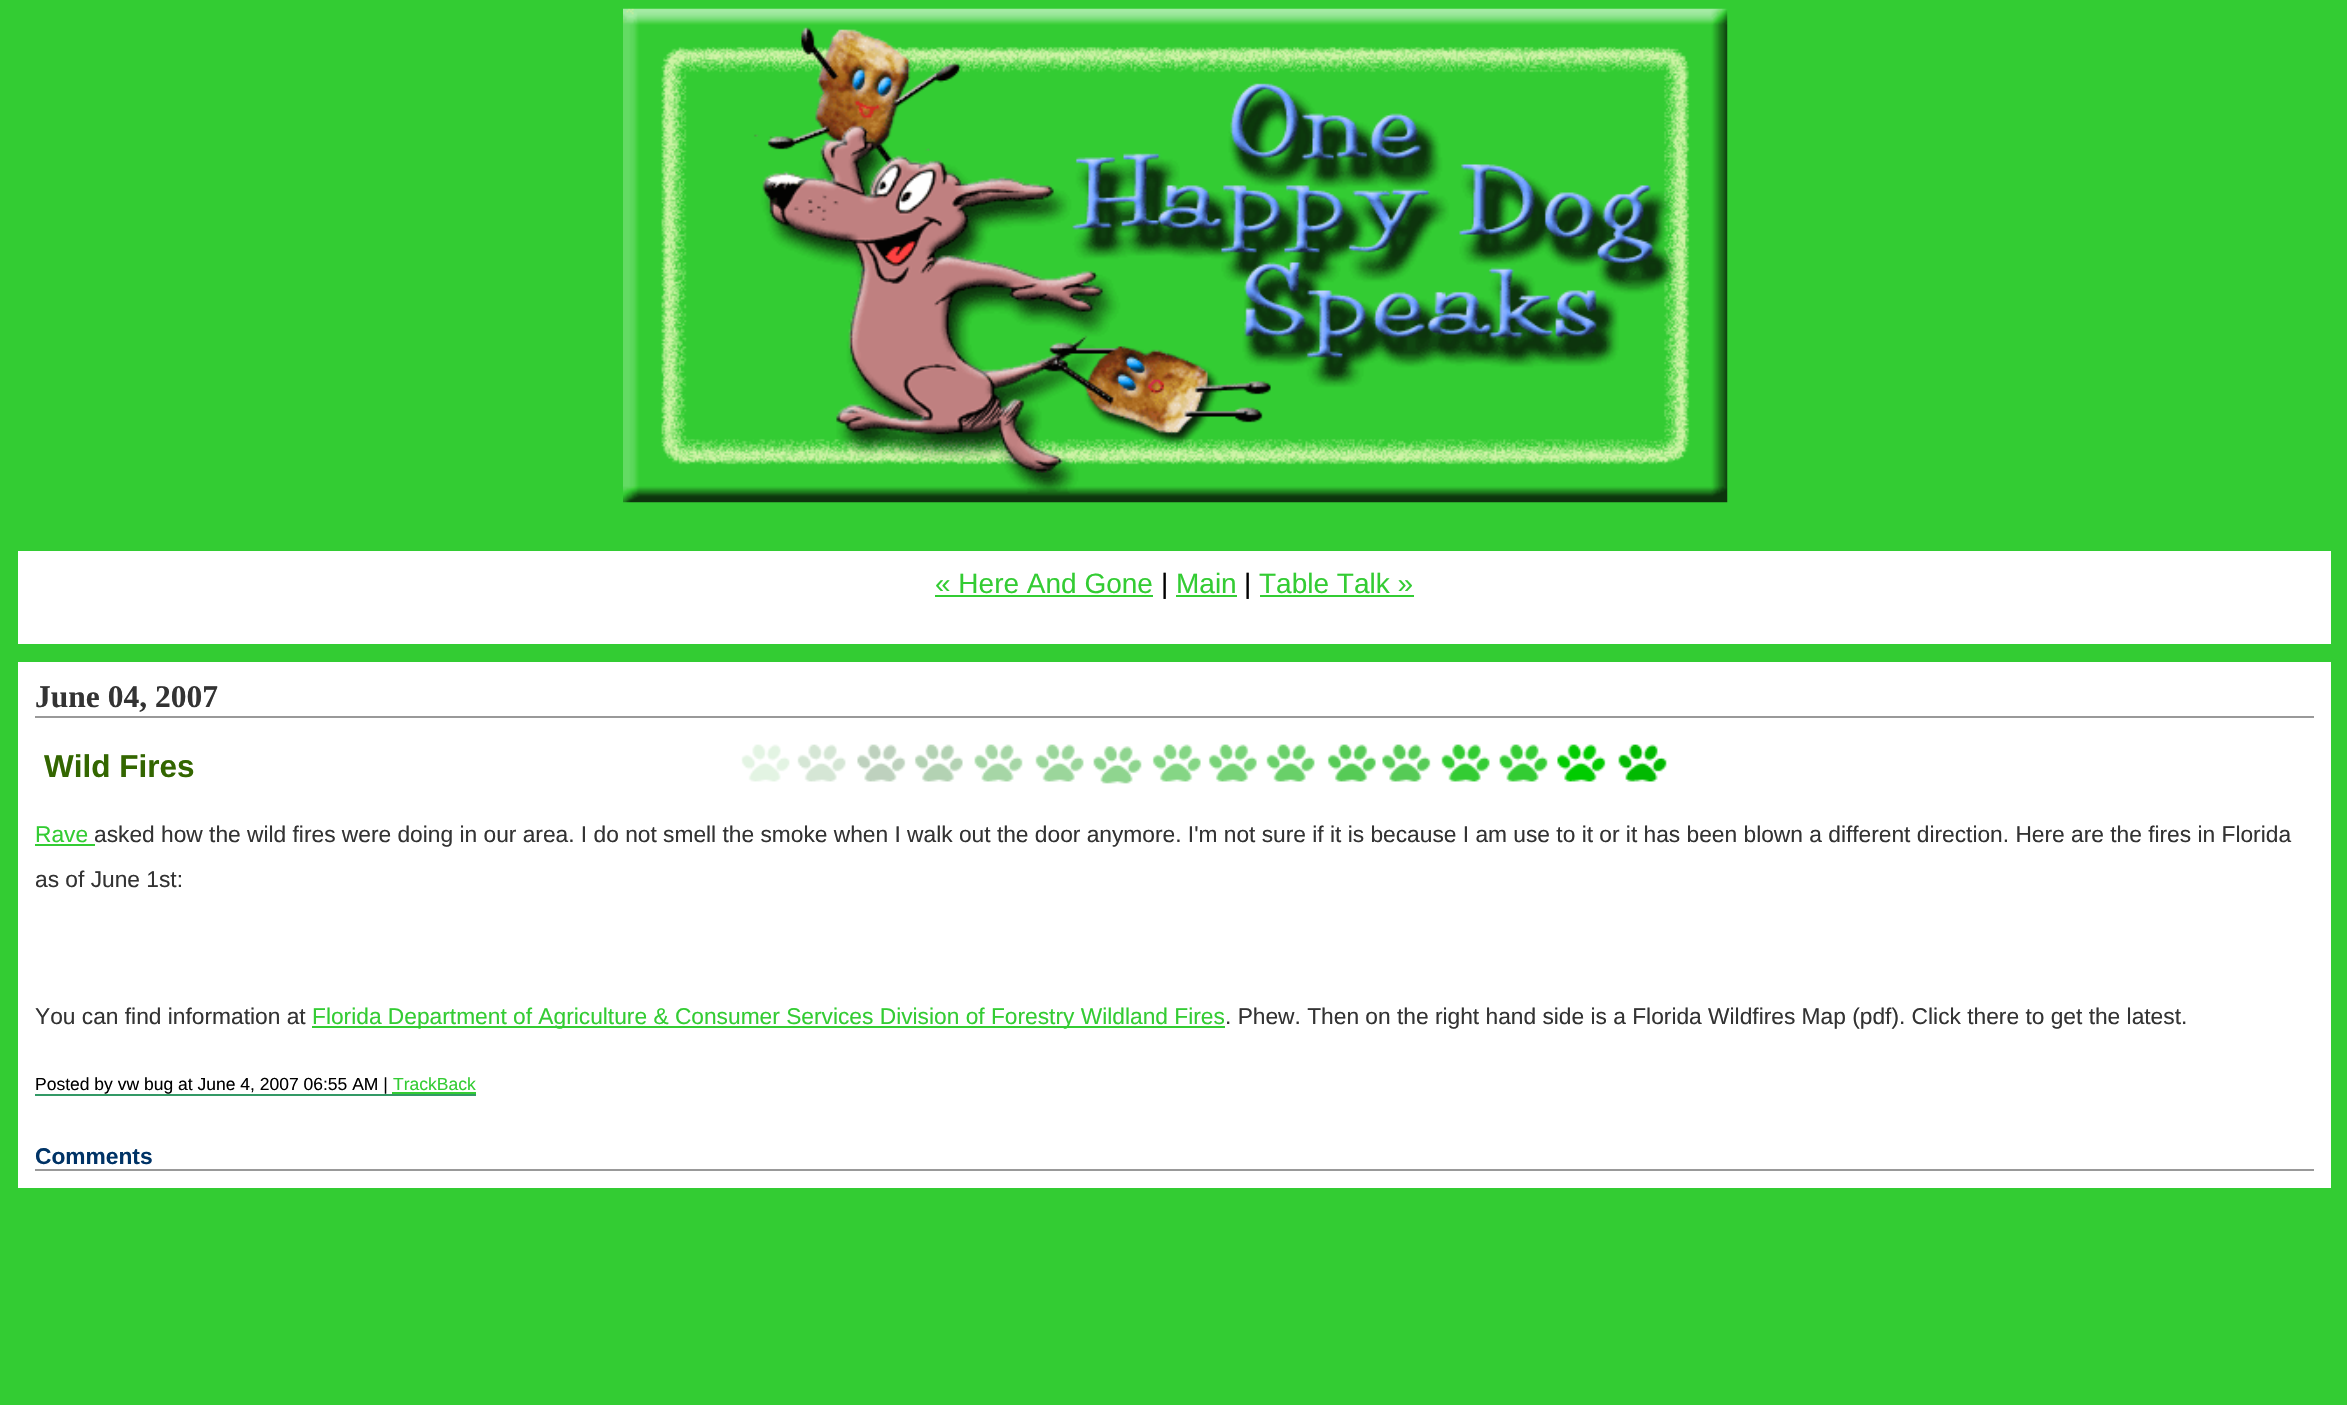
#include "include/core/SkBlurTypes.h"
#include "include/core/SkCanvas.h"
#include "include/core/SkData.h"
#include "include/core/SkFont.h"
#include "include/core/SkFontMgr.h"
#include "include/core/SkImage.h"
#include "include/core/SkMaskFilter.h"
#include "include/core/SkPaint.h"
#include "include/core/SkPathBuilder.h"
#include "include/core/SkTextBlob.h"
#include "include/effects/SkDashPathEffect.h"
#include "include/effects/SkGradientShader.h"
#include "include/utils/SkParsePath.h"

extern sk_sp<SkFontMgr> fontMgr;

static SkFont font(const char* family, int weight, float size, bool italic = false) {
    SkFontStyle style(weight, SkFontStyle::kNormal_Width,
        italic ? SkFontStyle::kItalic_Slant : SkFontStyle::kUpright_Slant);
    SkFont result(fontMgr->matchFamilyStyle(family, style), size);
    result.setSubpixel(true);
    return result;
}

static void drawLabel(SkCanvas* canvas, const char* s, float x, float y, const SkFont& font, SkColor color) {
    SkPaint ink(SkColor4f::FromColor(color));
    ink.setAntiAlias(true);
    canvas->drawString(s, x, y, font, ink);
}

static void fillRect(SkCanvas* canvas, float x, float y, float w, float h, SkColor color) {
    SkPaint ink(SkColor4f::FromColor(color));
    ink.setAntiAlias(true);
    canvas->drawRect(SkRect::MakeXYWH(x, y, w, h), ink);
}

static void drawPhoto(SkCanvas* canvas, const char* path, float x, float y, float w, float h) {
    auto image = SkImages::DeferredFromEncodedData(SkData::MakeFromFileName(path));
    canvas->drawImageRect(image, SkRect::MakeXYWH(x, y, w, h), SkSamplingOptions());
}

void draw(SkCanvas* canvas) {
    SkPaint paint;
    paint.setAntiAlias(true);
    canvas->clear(0xFF33CC33);
    drawPhoto(canvas, "assets/img1.png", 623, 8, 1105, 495);
    fillRect(canvas, 18, 551, 2313, 93, 0xFFFFFFFF);
    SkFont font1 = font("Liberation Sans", 400, 28);
    drawLabel(canvas, "« Here And Gone", 935, 593, font1, 0xFF33CC33);
    fillRect(canvas, 935, 595, 218, 2, 0xFF33CC33);
    drawLabel(canvas, "|", 1161, 593, font1, 0xFF000000);
    drawLabel(canvas, "Main", 1176, 593, font1, 0xFF33CC33);
    fillRect(canvas, 1176, 595, 61, 2, 0xFF33CC33);
    drawLabel(canvas, "|", 1244, 593, font1, 0xFF000000);
    drawLabel(canvas, "Table Talk »", 1259, 593, font1, 0xFF33CC33);
    fillRect(canvas, 1260, 595, 154, 2, 0xFF33CC33);
    fillRect(canvas, 18, 662, 2313, 526, 0xFFFFFFFF);
    fillRect(canvas, 35, 716, 2279, 2, 0xFF999999);
    SkFont font2 = font("Liberation Serif", 700, 31.5f);
    drawLabel(canvas, "June 04, 2007", 35, 707, font2, 0xFF333333);
    drawPhoto(canvas, "assets/img2.png", 741, 744, 926, 40);
    SkFont font3 = font("Liberation Sans", 700, 31.5f);
    drawLabel(canvas, "Wild Fires", 44, 777, font3, 0xFF336600);
    SkFont font4 = font("Liberation Sans", 400, 22.75f);
    drawLabel(canvas, "Rave", 35, 842, font4, 0xFF33CC33);
    fillRect(canvas, 35, 844, 60, 2, 0xFF33CC33);
    drawLabel(canvas, "asked how the wild fires were doing in our area. I do not smell the smoke when I walk out the door anymore. I'm not sure if it is because I am use to it or it has been blown a different direction. Here are the fires in Florida", 94, 842, font4, 0xFF333333);
    drawLabel(canvas, "as of June 1st:", 35, 887, font4, 0xFF333333);
    drawLabel(canvas, "You can find information at", 35, 1024, font4, 0xFF333333);
    fillRect(canvas, 312, 1026, 913, 2, 0xFF33CC33);
    drawLabel(canvas, "Florida Department of Agriculture & Consumer Services Division of Forestry Wildland Fires", 312, 1024, font4, 0xFF33CC33);
    drawLabel(canvas, ". Phew. Then on the right hand side is a Florida Wildfires Map (pdf). Click there to get the latest.", 1225, 1024, font4, 0xFF333333);
    SkFont font5 = font("Liberation Sans", 400, 17.5f);
    drawLabel(canvas, "Posted by vw bug at June 4, 2007 06:55 AM |", 35, 1090, font5, 0xFF000000);
    fillRect(canvas, 35, 1094, 441, 2, 0xFF339966);
    drawLabel(canvas, "TrackBack", 393, 1090, font5, 0xFF33CC33);
    fillRect(canvas, 392, 1092, 84, 2, 0xFF33CC33);
    fillRect(canvas, 35, 1169, 2279, 2, 0xFF999999);
    SkFont font6 = font("Liberation Sans", 700, 22.75f);
    drawLabel(canvas, "Comments", 35, 1164, font6, 0xFF003366);
}
